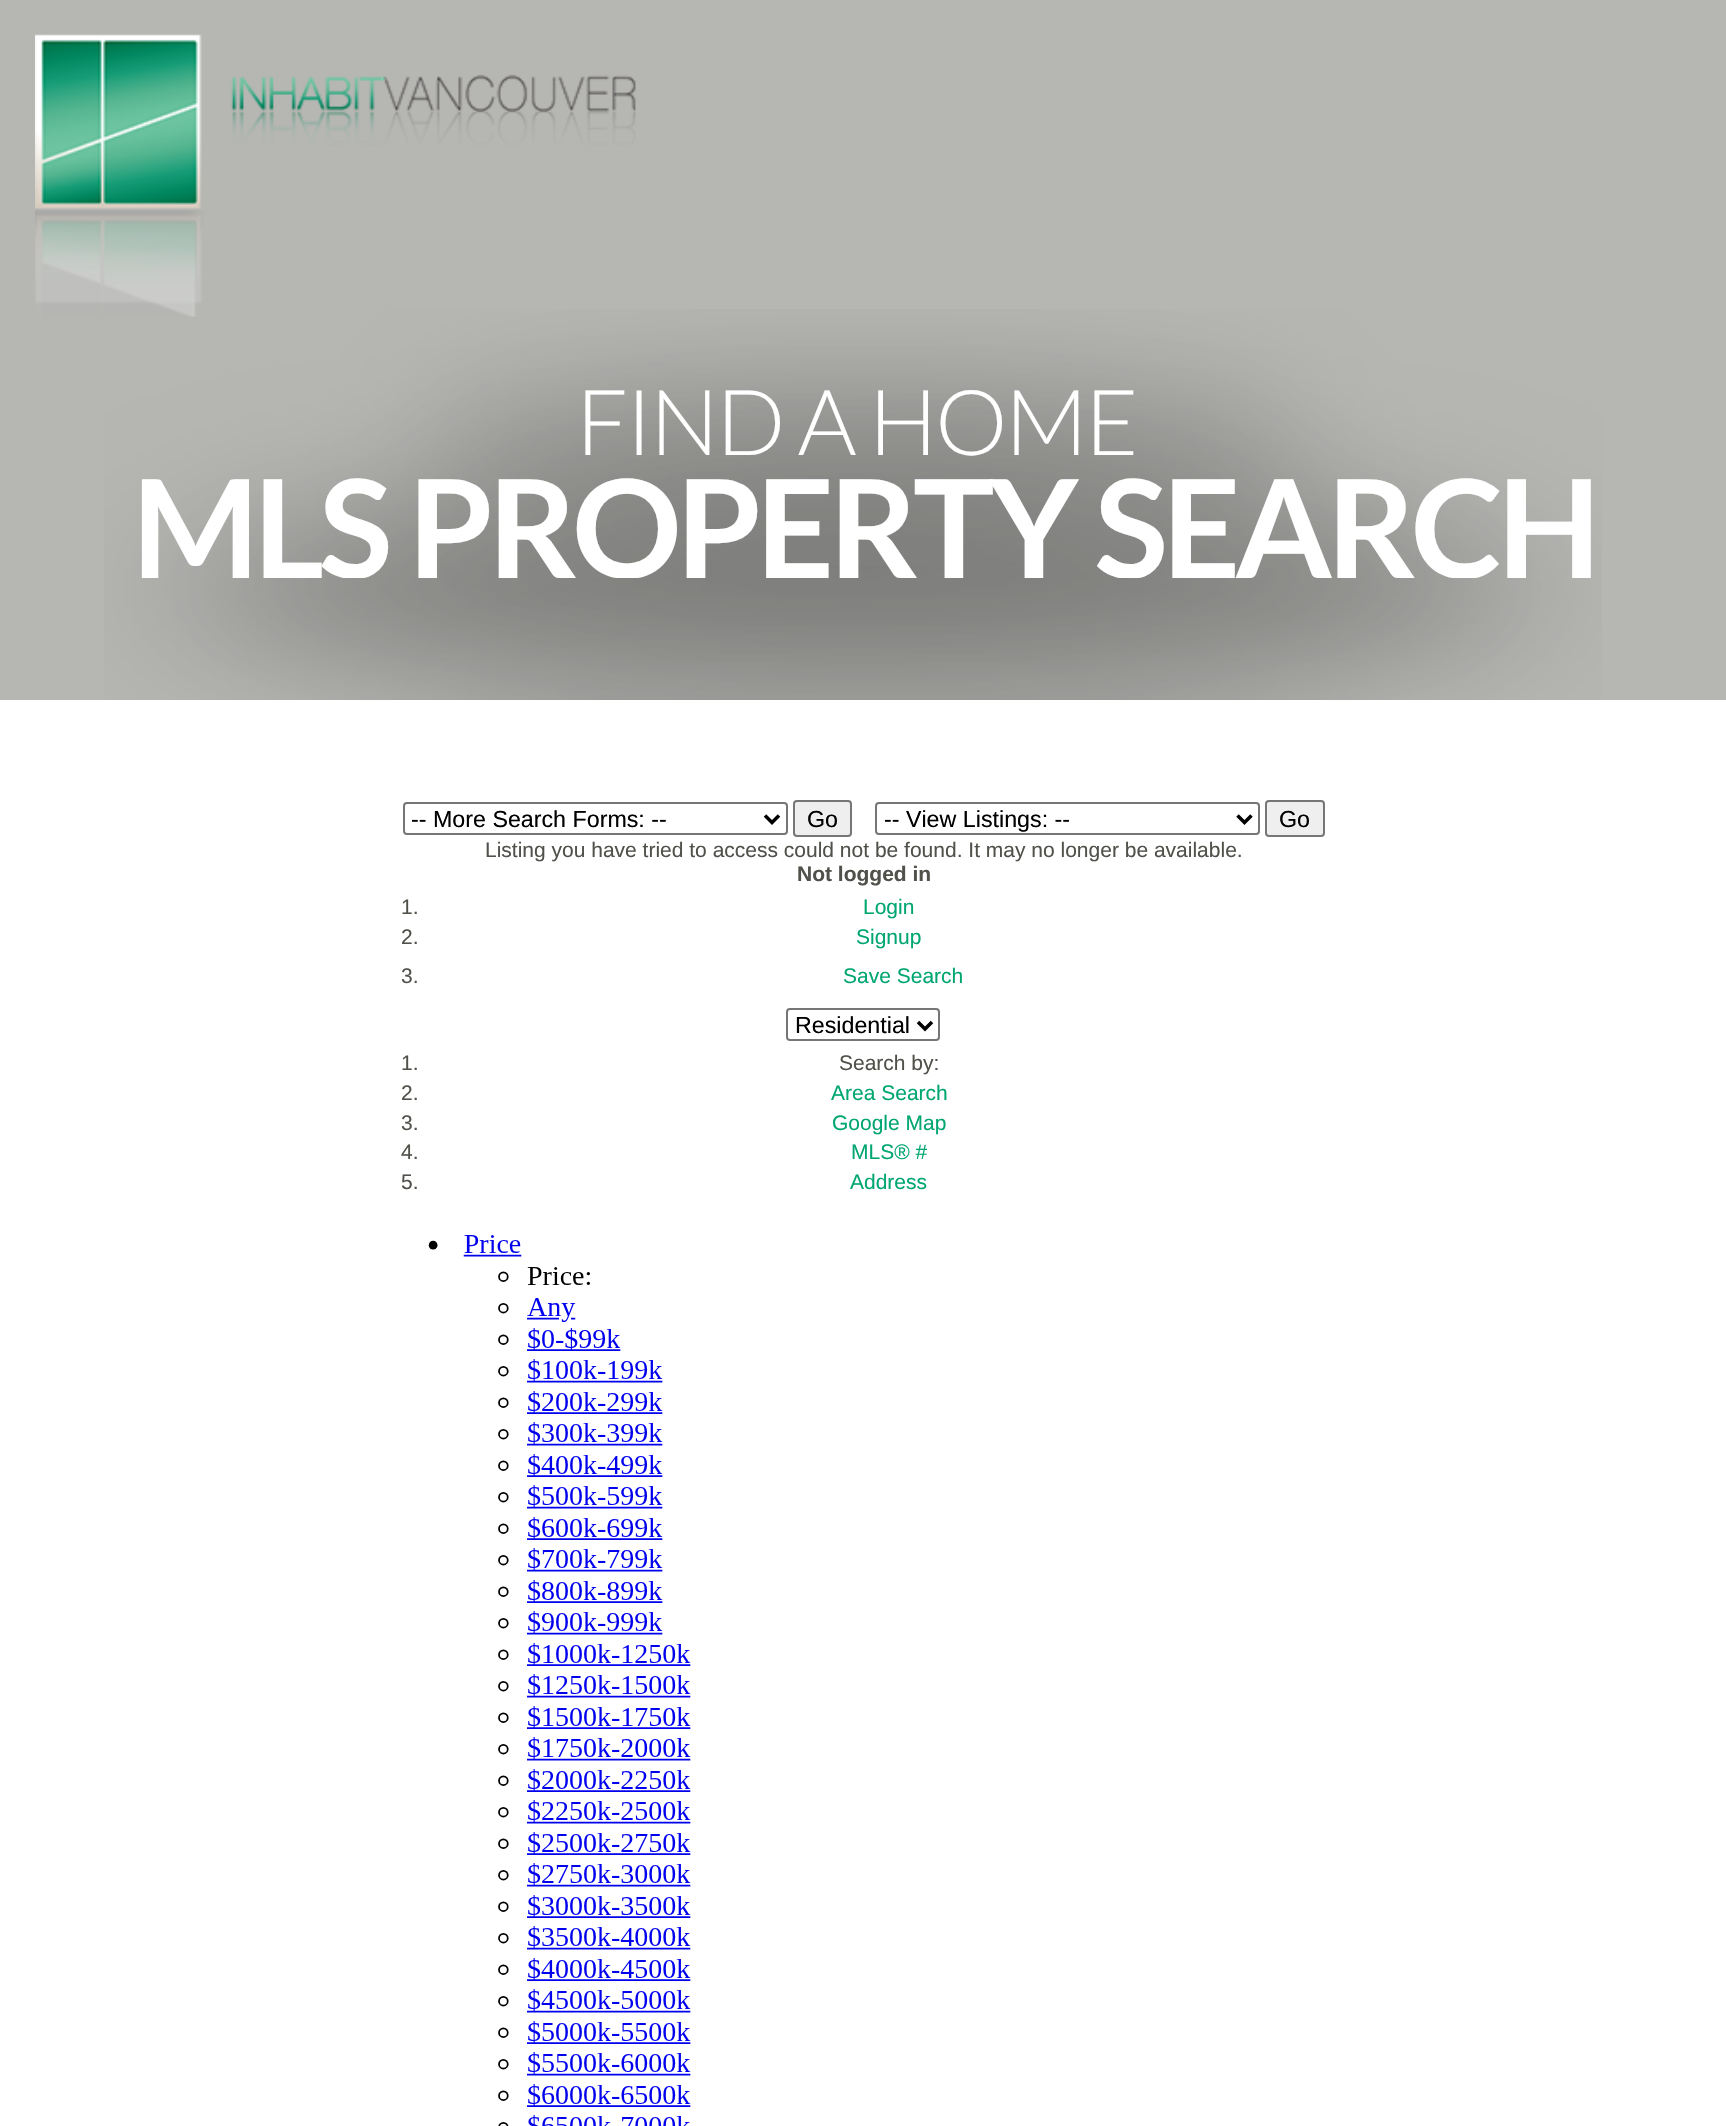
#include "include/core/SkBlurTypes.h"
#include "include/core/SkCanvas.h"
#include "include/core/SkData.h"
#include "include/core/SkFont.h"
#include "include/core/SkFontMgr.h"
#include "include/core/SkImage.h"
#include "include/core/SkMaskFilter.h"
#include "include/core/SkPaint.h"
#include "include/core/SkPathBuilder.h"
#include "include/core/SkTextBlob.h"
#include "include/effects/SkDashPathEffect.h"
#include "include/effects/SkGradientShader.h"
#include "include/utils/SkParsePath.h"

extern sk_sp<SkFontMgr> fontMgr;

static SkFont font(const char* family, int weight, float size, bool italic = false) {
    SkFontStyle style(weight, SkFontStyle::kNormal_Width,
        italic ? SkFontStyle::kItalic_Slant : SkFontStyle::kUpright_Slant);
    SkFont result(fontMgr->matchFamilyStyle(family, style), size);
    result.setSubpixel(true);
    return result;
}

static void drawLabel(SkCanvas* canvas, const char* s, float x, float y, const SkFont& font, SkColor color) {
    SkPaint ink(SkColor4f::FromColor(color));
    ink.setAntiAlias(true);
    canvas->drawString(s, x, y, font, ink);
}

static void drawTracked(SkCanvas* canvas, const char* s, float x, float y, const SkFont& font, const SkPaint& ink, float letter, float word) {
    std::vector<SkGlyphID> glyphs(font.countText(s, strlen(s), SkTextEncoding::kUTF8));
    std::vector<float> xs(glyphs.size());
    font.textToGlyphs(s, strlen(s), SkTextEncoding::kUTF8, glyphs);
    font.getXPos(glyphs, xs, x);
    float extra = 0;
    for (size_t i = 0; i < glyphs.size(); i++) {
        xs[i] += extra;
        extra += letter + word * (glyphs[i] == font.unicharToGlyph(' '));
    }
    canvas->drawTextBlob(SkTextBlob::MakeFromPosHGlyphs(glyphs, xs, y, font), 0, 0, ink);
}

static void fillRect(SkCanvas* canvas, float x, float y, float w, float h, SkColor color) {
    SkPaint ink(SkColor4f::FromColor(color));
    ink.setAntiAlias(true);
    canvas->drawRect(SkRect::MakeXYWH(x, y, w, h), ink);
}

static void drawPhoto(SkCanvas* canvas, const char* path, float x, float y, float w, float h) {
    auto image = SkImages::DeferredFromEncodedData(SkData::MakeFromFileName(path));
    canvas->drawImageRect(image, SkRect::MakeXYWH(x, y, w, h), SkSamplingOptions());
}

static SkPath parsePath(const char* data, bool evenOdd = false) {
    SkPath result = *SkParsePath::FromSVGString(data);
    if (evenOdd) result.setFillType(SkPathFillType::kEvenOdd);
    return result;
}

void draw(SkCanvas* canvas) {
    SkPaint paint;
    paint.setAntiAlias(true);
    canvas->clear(0xFFB6B6B3);
    drawPhoto(canvas, "assets/img2.png", 104, 309, 1498, 391);
    drawPhoto(canvas, "assets/img1.png", 35, 34, 601, 283);
    fillRect(canvas, 0, 700, 1726, 1426, 0xFFFFFFFF);
    SkFont font1 = font("Lato", 300, 91);
    paint.setColor(0xFFFFFFFF);
    drawTracked(canvas, "FIND A HOME", 576, 455, font1, paint, -2.6f, 0);
    canvas->save();
    canvas->clipRect(SkRect::MakeXYWH(0, 368, 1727, 210));
    SkFont font2 = font("Lato", 700, 136.5f);
    drawTracked(canvas, "MLS PROPERTY SEARCH", 132, 578, font2, paint, -5.25f, 0);
    canvas->restore();
    paint.setStroke(true);
    paint.setStrokeWidth(2);
    paint.setColor(0xFF767676);
    canvas->drawRoundRect(SkRect::MakeXYWH(404, 803, 383, 31), 3, 3, paint);
    paint.setStrokeWidth(3.5f);
    paint.setColor(0xFF000000);
    canvas->drawPath(parsePath("M765 815.5L772 822.5L779 815.5"), paint);
    SkFont font3 = font("Liberation Sans", 400, 23.25f);
    drawLabel(canvas, "-- More Search Forms: --", 411, 827, font3, 0xFF000000);
    paint.setStroke(false);
    paint.setColor(0xFFEFEFEF);
    canvas->drawRoundRect(SkRect::MakeXYWH(794, 801, 57, 35), 3, 3, paint);
    paint.setStroke(true);
    paint.setStrokeWidth(2);
    paint.setColor(0xFF767676);
    canvas->drawRoundRect(SkRect::MakeXYWH(794, 801, 57, 35), 3, 3, paint);
    drawLabel(canvas, "Go", 807, 827, font3, 0xFF000000);
    canvas->drawRoundRect(SkRect::MakeXYWH(876, 803, 383, 31), 3, 3, paint);
    paint.setStrokeWidth(3.5f);
    paint.setColor(0xFF000000);
    canvas->drawPath(parsePath("M1237.5 815.5L1244.5 822.5L1251.5 815.5"), paint);
    drawLabel(canvas, "-- View Listings: --", 884, 827, font3, 0xFF000000);
    paint.setStroke(false);
    paint.setColor(0xFFEFEFEF);
    canvas->drawRoundRect(SkRect::MakeXYWH(1266, 801, 58, 35), 3, 3, paint);
    paint.setStroke(true);
    paint.setStrokeWidth(2);
    paint.setColor(0xFF767676);
    canvas->drawRoundRect(SkRect::MakeXYWH(1266, 801, 58, 35), 3, 3, paint);
    drawLabel(canvas, "Go", 1279, 827, font3, 0xFF000000);
    SkFont font4 = font("Liberation Sans", 400, 21);
    drawLabel(canvas, "Listing you have tried to access could not be found. It may no longer be available.", 485, 857, font4, 0xFF51514B);
    SkFont font5 = font("Liberation Sans", 700, 21);
    drawLabel(canvas, "Not logged in", 797, 881, font5, 0xFF51514B);
    drawLabel(canvas, "1.", 401, 914, font4, 0xFF51514B);
    drawLabel(canvas, "Login", 863, 914, font4, 0xFF00A671);
    drawLabel(canvas, "2.", 401, 944, font4, 0xFF51514B);
    drawLabel(canvas, "Signup", 856, 944, font4, 0xFF00A671);
    drawLabel(canvas, "3.", 401, 983, font4, 0xFF51514B);
    drawLabel(canvas, "Save Search", 843, 983, font4, 0xFF00A671);
    canvas->drawRoundRect(SkRect::MakeXYWH(787, 1009, 152, 31), 3, 3, paint);
    paint.setStrokeWidth(3.5f);
    paint.setColor(0xFF000000);
    canvas->drawPath(parsePath("M918 1022L925 1029L932 1022"), paint);
    drawLabel(canvas, "Residential", 795, 1033, font3, 0xFF000000);
    drawLabel(canvas, "1.", 401, 1070, font4, 0xFF51514B);
    drawLabel(canvas, "Search by:", 839, 1070, font4, 0xFF51514B);
    drawLabel(canvas, "2.", 401, 1100, font4, 0xFF51514B);
    drawLabel(canvas, "Area Search", 831, 1100, font4, 0xFF00A671);
    drawLabel(canvas, "3.", 401, 1130, font4, 0xFF51514B);
    drawLabel(canvas, "Google Map", 832, 1130, font4, 0xFF00A671);
    drawLabel(canvas, "4.", 401, 1159, font4, 0xFF51514B);
    drawLabel(canvas, "MLS® #", 851, 1159, font4, 0xFF00A671);
    drawLabel(canvas, "5.", 401, 1189, font4, 0xFF51514B);
    drawLabel(canvas, "Address", 850, 1189, font4, 0xFF00A671);
    drawPhoto(canvas, "assets/img3.png", 428, 1235, 263, 891);
}
